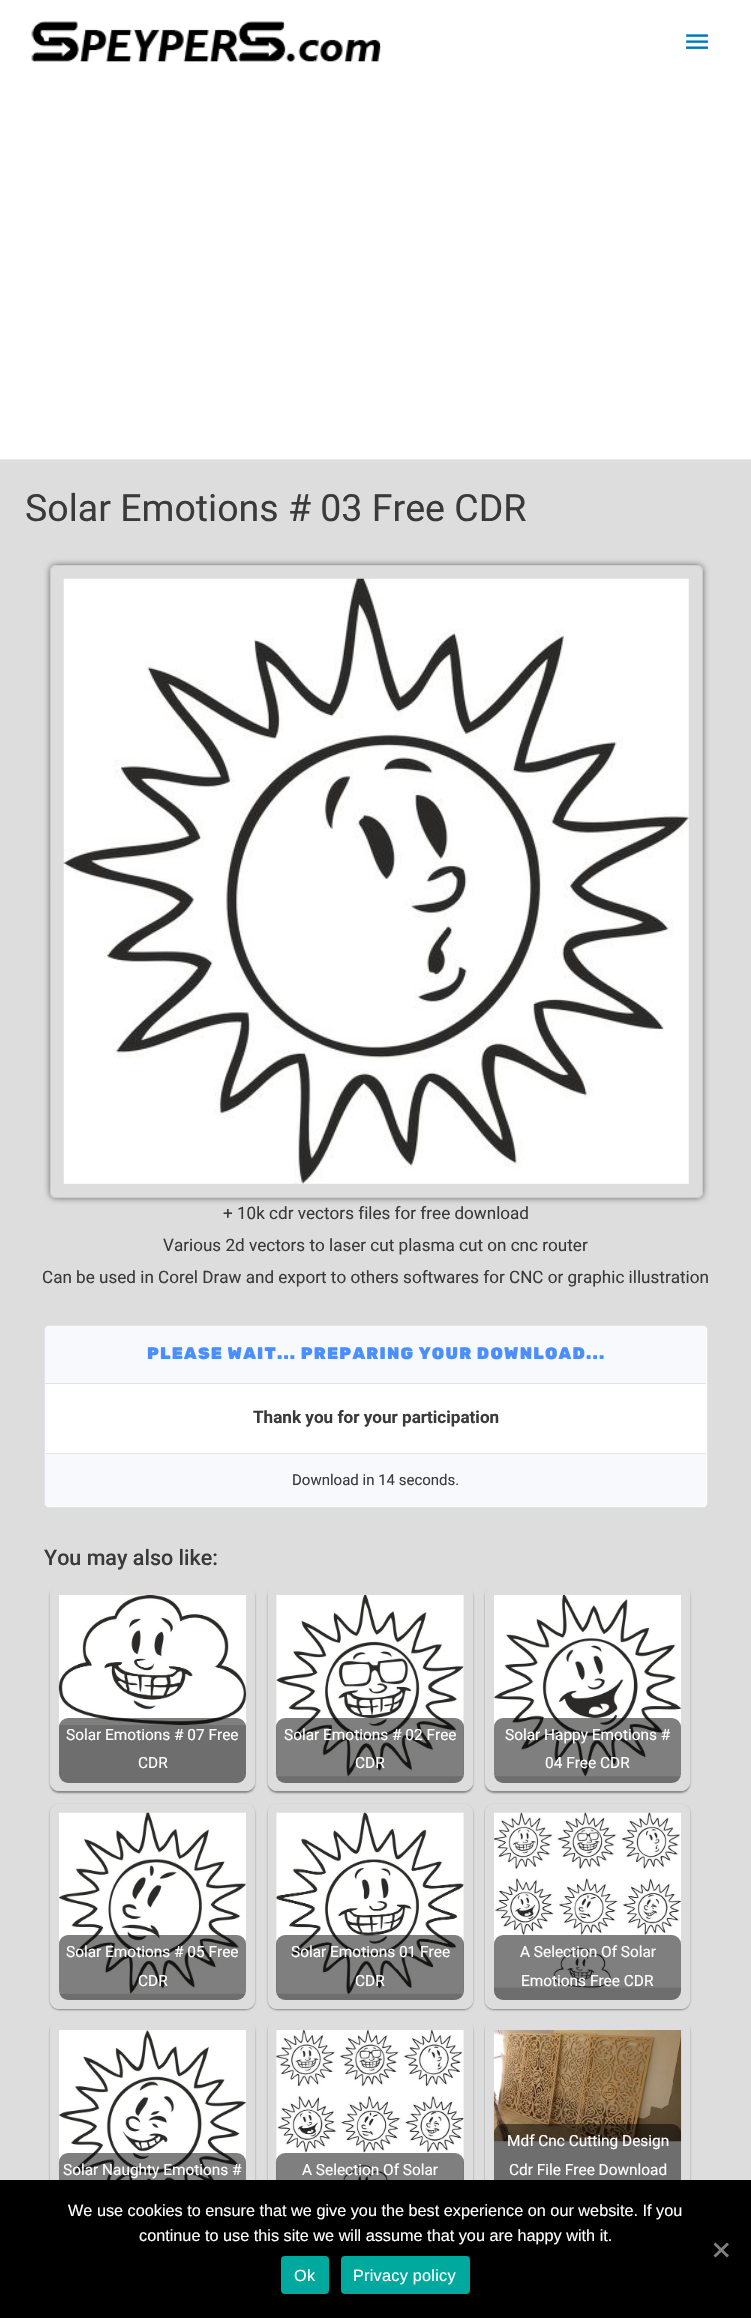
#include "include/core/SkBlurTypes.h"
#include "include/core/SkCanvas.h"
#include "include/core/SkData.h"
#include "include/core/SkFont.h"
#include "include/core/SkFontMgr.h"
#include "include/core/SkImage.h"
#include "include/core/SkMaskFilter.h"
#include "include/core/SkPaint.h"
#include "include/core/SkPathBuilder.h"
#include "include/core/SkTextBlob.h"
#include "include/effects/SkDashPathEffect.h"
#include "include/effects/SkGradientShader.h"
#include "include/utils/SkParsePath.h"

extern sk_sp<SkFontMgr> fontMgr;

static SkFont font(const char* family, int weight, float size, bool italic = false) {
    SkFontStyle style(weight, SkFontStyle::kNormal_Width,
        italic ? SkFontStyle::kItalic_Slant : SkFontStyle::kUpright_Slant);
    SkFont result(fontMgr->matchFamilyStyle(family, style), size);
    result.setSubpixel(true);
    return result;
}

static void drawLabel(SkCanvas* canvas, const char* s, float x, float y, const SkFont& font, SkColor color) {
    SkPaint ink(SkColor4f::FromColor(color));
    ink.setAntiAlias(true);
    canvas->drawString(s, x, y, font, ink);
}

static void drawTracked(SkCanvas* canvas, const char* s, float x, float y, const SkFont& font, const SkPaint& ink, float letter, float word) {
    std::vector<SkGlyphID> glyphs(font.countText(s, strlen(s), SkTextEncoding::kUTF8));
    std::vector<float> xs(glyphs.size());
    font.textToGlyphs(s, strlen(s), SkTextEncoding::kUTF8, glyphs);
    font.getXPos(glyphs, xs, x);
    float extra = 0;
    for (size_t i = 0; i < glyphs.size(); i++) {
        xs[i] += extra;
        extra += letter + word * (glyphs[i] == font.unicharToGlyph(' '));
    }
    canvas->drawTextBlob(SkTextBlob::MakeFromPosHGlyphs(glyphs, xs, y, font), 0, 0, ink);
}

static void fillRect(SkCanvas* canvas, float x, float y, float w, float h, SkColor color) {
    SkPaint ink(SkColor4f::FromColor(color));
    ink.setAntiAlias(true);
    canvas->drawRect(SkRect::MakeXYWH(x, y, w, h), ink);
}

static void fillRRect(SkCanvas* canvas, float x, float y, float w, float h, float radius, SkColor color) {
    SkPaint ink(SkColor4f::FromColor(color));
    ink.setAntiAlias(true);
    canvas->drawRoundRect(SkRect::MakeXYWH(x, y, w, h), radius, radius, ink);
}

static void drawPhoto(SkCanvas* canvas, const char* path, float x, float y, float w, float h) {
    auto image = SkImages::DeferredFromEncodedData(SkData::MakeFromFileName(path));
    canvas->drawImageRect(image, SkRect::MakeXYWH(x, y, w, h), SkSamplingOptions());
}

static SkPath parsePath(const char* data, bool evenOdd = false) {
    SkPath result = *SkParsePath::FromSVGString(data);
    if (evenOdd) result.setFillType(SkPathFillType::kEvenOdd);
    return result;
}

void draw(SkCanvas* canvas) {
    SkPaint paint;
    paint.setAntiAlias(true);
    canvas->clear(0xFFDDDDDD);
    fillRect(canvas, 0, 0, 751, 459, 0xFFFFFFFF);
    fillRect(canvas, 0, 459, 751, 1, 0xFFEAEAEA);
    drawPhoto(canvas, "assets/img1.png", 31, 21, 350, 41);
    drawPhoto(canvas, "assets/img2.png", 686, 34, 22, 15);
    SkFont font1 = font("Roboto", 400, 37.5f);
    drawLabel(canvas, "Solar Emotions # 03 Free CDR", 25, 521, font1, 0xFF3A3A3A);
    canvas->save();
    canvas->clipPath(parsePath("M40 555H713V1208H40ZM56 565H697C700.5 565 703 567.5 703 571V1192C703 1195.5 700.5 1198 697 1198H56C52.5 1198 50 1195.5 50 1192V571C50 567.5 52.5 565 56 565Z", true), true);
    paint.setColor(0xFF666666);
    paint.setMaskFilter(SkMaskFilter::MakeBlur(kNormal_SkBlurStyle, 3));
    canvas->drawRoundRect(SkRect::MakeXYWH(50, 565, 653, 633), 6, 6, paint);
    paint.setMaskFilter(nullptr);
    canvas->restore();
    paint.setStroke(true);
    paint.setStrokeWidth(1);
    paint.setColor(0xFFCCCCCC);
    canvas->drawRoundRect(SkRect::MakeXYWH(50.5f, 565.5f, 652, 632), 5.5f, 5.5f, paint);
    drawPhoto(canvas, "assets/img3.png", 63, 578, 626, 606);
    SkFont font2 = font("Roboto", 400, 17.1f);
    drawLabel(canvas, "+ 10k cdr vectors files for free download", 223, 1219, font2, 0xFF3A3A3A);
    drawLabel(canvas, "Various 2d vectors to laser cut plasma cut on cnc router", 163, 1251, font2, 0xFF3A3A3A);
    drawLabel(canvas, "Can be used in Corel Draw and export to others softwares for CNC or graphic illustration", 42, 1283, font2, 0xFF3A3A3A);
    paint.setStroke(false);
    paint.setColor(0xFFFFFFFF);
    canvas->drawRoundRect(SkRect::MakeXYWH(44.5f, 1325.5f, 663, 182), 4.5f, 4.5f, paint);
    paint.setStroke(true);
    paint.setColor(0xFFE3E4E9);
    canvas->drawRoundRect(SkRect::MakeXYWH(44.5f, 1325.5f, 663, 182), 4.5f, 4.5f, paint);
    paint.setStroke(false);
    paint.setColor(0xFFF7F9FC);
    canvas->drawPath(parsePath("M49 1326H702C704 1326 706 1328 706 1330V1384H45V1330C45 1328 47 1326 49 1326Z"), paint);
    fillRect(canvas, 45, 1383, 661, 1, 0xFFE3E4E9);
    SkFont font3 = font("Rubik", 900, 16.7f);
    paint.setColor(0xFF4A8EFF);
    drawTracked(canvas, "PLEASE WAIT... PREPARING YOUR DOWNLOAD...", 147, 1359, font3, paint, 1.25f, 0);
    SkFont font4 = font("Roboto", 700, 17.1f);
    drawLabel(canvas, "Thank you for your participation", 253, 1423, font4, 0xFF3A3A3A);
    paint.setColor(0xFFF7F9FC);
    canvas->drawPath(parsePath("M45 1453H706V1502C706 1504 704 1506 702 1506H49C47 1506 45 1504 45 1502Z"), paint);
    fillRect(canvas, 45, 1453, 661, 1, 0xFFE3E4E9);
    SkFont font5 = font("Roboto", 400, 15);
    drawLabel(canvas, "Download in 14 seconds.", 292, 1485, font5, 0xFF3A3A3A);
    SkFont font6 = font("Roboto", 500, 21.5f);
    drawLabel(canvas, "You may also like:", 44, 1565, font6, 0xFF3A3A3A);
    canvas->save();
    canvas->clipPath(parsePath("M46 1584H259V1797H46ZM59 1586H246C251 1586 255 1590 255 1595V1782C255 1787 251 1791 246 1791H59C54 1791 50 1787 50 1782V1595C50 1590 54 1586 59 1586Z", true), true);
    paint.setColor(0x66000000);
    paint.setMaskFilter(SkMaskFilter::MakeBlur(kNormal_SkBlurStyle, 1));
    canvas->drawRoundRect(SkRect::MakeXYWH(50, 1588, 205, 205), 9, 9, paint);
    paint.setMaskFilter(nullptr);
    canvas->restore();
    paint.setStroke(true);
    paint.setColor(0xFFDDDDDD);
    canvas->drawRoundRect(SkRect::MakeXYWH(50.5f, 1586.5f, 204, 204), 8.5f, 8.5f, paint);
    drawPhoto(canvas, "assets/img4.png", 58, 1595, 189, 130);
    fillRRect(canvas, 59, 1718, 187, 65, 9, 0x80000000);
    SkFont font7 = font("Roboto", 400, 15.4f);
    drawLabel(canvas, "Solar Emotions # 07 Free", 66, 1740, font7, 0xFFFFFFFF);
    drawLabel(canvas, "CDR", 138, 1768, font7, 0xFFFFFFFF);
    canvas->save();
    canvas->clipPath(parsePath("M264 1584H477V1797H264ZM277 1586H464C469 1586 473 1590 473 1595V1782C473 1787 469 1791 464 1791H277C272 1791 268 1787 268 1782V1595C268 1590 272 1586 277 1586Z", true), true);
    paint.setStroke(false);
    paint.setColor(0x66000000);
    paint.setMaskFilter(SkMaskFilter::MakeBlur(kNormal_SkBlurStyle, 1));
    canvas->drawRoundRect(SkRect::MakeXYWH(268, 1588, 205, 205), 9, 9, paint);
    paint.setMaskFilter(nullptr);
    canvas->restore();
    paint.setStroke(true);
    paint.setColor(0xFFDDDDDD);
    canvas->drawRoundRect(SkRect::MakeXYWH(268.5f, 1586.5f, 204, 204), 8.5f, 8.5f, paint);
    drawPhoto(canvas, "assets/img5.png", 276, 1595, 188, 182);
    fillRRect(canvas, 276, 1718, 188, 65, 9, 0x80000000);
    drawLabel(canvas, "Solar Emotions # 02 Free", 284, 1740, font7, 0xFFFFFFFF);
    drawLabel(canvas, "CDR", 355, 1768, font7, 0xFFFFFFFF);
    canvas->save();
    canvas->clipPath(parsePath("M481 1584H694V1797H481ZM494 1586H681C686 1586 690 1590 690 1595V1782C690 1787 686 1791 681 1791H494C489 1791 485 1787 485 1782V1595C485 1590 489 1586 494 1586Z", true), true);
    paint.setStroke(false);
    paint.setColor(0x66000000);
    paint.setMaskFilter(SkMaskFilter::MakeBlur(kNormal_SkBlurStyle, 1));
    canvas->drawRoundRect(SkRect::MakeXYWH(485, 1588, 205, 205), 9, 9, paint);
    paint.setMaskFilter(nullptr);
    canvas->restore();
    paint.setStroke(true);
    paint.setColor(0xFFDDDDDD);
    canvas->drawRoundRect(SkRect::MakeXYWH(485.5f, 1586.5f, 204, 204), 8.5f, 8.5f, paint);
    drawPhoto(canvas, "assets/img6.png", 494, 1595, 187, 182);
    fillRRect(canvas, 494, 1718, 187, 65, 9, 0x80000000);
    drawLabel(canvas, "Solar Happy Emotions #", 505, 1740, font7, 0xFFFFFFFF);
    drawLabel(canvas, "04 Free CDR", 545, 1768, font7, 0xFFFFFFFF);
    canvas->save();
    canvas->clipPath(parsePath("M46 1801H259V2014H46ZM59 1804H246C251 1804 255 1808 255 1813V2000C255 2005 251 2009 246 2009H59C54 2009 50 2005 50 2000V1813C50 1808 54 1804 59 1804Z", true), true);
    paint.setStroke(false);
    paint.setColor(0x66000000);
    paint.setMaskFilter(SkMaskFilter::MakeBlur(kNormal_SkBlurStyle, 1));
    canvas->drawRoundRect(SkRect::MakeXYWH(50, 1805, 205, 205), 9, 9, paint);
    paint.setMaskFilter(nullptr);
    canvas->restore();
    paint.setStroke(true);
    paint.setColor(0xFFDDDDDD);
    canvas->drawRoundRect(SkRect::MakeXYWH(50.5f, 1804.5f, 204, 204), 8.5f, 8.5f, paint);
    drawPhoto(canvas, "assets/img7.png", 59, 1812, 187, 182);
    fillRRect(canvas, 59, 1935, 187, 65, 9, 0x80000000);
    drawLabel(canvas, "Solar Emotions # 05 Free", 66, 1957, font7, 0xFFFFFFFF);
    drawLabel(canvas, "CDR", 138, 1986, font7, 0xFFFFFFFF);
    canvas->save();
    canvas->clipPath(parsePath("M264 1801H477V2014H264ZM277 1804H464C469 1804 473 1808 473 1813V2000C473 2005 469 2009 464 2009H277C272 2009 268 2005 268 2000V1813C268 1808 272 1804 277 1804Z", true), true);
    paint.setStroke(false);
    paint.setColor(0x66000000);
    paint.setMaskFilter(SkMaskFilter::MakeBlur(kNormal_SkBlurStyle, 1));
    canvas->drawRoundRect(SkRect::MakeXYWH(268, 1805, 205, 205), 9, 9, paint);
    paint.setMaskFilter(nullptr);
    canvas->restore();
    paint.setStroke(true);
    paint.setColor(0xFFDDDDDD);
    canvas->drawRoundRect(SkRect::MakeXYWH(268.5f, 1804.5f, 204, 204), 8.5f, 8.5f, paint);
    drawPhoto(canvas, "assets/img8.png", 276, 1812, 188, 182);
    fillRRect(canvas, 276, 1935, 188, 65, 9, 0x80000000);
    drawLabel(canvas, "Solar Emotions 01 Free", 291, 1957, font7, 0xFFFFFFFF);
    drawLabel(canvas, "CDR", 355, 1986, font7, 0xFFFFFFFF);
    canvas->save();
    canvas->clipPath(parsePath("M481 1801H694V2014H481ZM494 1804H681C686 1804 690 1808 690 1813V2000C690 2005 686 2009 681 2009H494C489 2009 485 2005 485 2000V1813C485 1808 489 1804 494 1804Z", true), true);
    paint.setStroke(false);
    paint.setColor(0x66000000);
    paint.setMaskFilter(SkMaskFilter::MakeBlur(kNormal_SkBlurStyle, 1));
    canvas->drawRoundRect(SkRect::MakeXYWH(485, 1805, 205, 205), 9, 9, paint);
    paint.setMaskFilter(nullptr);
    canvas->restore();
    paint.setStroke(true);
    paint.setColor(0xFFDDDDDD);
    canvas->drawRoundRect(SkRect::MakeXYWH(485.5f, 1804.5f, 204, 204), 8.5f, 8.5f, paint);
    drawPhoto(canvas, "assets/img9.png", 494, 1812, 187, 176);
    fillRRect(canvas, 494, 1935, 187, 65, 9, 0x80000000);
    drawLabel(canvas, "A Selection Of Solar", 520, 1957, font7, 0xFFFFFFFF);
    drawLabel(canvas, "Emotions Free CDR", 521, 1986, font7, 0xFFFFFFFF);
    canvas->save();
    canvas->clipPath(parsePath("M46 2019H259V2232H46ZM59 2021H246C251 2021 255 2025 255 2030V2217C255 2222 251 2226 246 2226H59C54 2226 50 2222 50 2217V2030C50 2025 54 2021 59 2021Z", true), true);
    paint.setStroke(false);
    paint.setColor(0x66000000);
    paint.setMaskFilter(SkMaskFilter::MakeBlur(kNormal_SkBlurStyle, 1));
    canvas->drawRoundRect(SkRect::MakeXYWH(50, 2023, 205, 205), 9, 9, paint);
    paint.setMaskFilter(nullptr);
    canvas->restore();
    paint.setStroke(true);
    paint.setColor(0xFFDDDDDD);
    canvas->drawRoundRect(SkRect::MakeXYWH(50.5f, 2021.5f, 204, 204), 8.5f, 8.5f, paint);
    drawPhoto(canvas, "assets/img10.png", 59, 2030, 187, 150);
    fillRRect(canvas, 59, 2153, 187, 65, 9, 0x80000000);
    drawLabel(canvas, "Solar Naughty Emotions #", 63, 2175, font7, 0xFFFFFFFF);
    canvas->save();
    canvas->clipPath(parsePath("M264 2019H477V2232H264ZM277 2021H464C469 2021 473 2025 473 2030V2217C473 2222 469 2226 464 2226H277C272 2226 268 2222 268 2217V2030C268 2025 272 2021 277 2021Z", true), true);
    paint.setStroke(false);
    paint.setColor(0x66000000);
    paint.setMaskFilter(SkMaskFilter::MakeBlur(kNormal_SkBlurStyle, 1));
    canvas->drawRoundRect(SkRect::MakeXYWH(268, 2023, 205, 205), 9, 9, paint);
    paint.setMaskFilter(nullptr);
    canvas->restore();
    paint.setStroke(true);
    paint.setColor(0xFFDDDDDD);
    canvas->drawRoundRect(SkRect::MakeXYWH(268.5f, 2021.5f, 204, 204), 8.5f, 8.5f, paint);
    drawPhoto(canvas, "assets/img11.png", 276, 2030, 188, 150);
    fillRRect(canvas, 276, 2153, 188, 65, 9, 0x80000000);
    drawLabel(canvas, "A Selection Of Solar", 302, 2175, font7, 0xFFFFFFFF);
    canvas->save();
    canvas->clipPath(parsePath("M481 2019H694V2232H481ZM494 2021H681C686 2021 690 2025 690 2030V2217C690 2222 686 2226 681 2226H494C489 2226 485 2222 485 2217V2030C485 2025 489 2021 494 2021Z", true), true);
    paint.setStroke(false);
    paint.setColor(0x66000000);
    paint.setMaskFilter(SkMaskFilter::MakeBlur(kNormal_SkBlurStyle, 1));
    canvas->drawRoundRect(SkRect::MakeXYWH(485, 2023, 205, 205), 9, 9, paint);
    paint.setMaskFilter(nullptr);
    canvas->restore();
    paint.setStroke(true);
    paint.setColor(0xFFDDDDDD);
    canvas->drawRoundRect(SkRect::MakeXYWH(485.5f, 2021.5f, 204, 204), 8.5f, 8.5f, paint);
    drawPhoto(canvas, "assets/img12.png", 493, 2030, 189, 112);
    fillRRect(canvas, 494, 2124, 187, 94, 9, 0x80000000);
    drawLabel(canvas, "Mdf Cnc Cutting Design", 507, 2146, font7, 0xFFFFFFFF);
    drawLabel(canvas, "Cdr File Free Download", 509, 2175, font7, 0xFFFFFFFF);
    fillRect(canvas, 0, 2180, 751, 138, 0xFF000000);
    SkFont font8 = font("Liberation Sans", 400, 16.25f);
    drawLabel(canvas, "We use cookies to ensure that we give you the best experience on our website. If you", 68, 2216, font8, 0xFFFFFFFF);
    drawLabel(canvas, "continue to use this site we will assume that you are happy with it.", 139, 2241, font8, 0xFFFFFFFF);
    paint.setStroke(false);
    paint.setColor(0xFF808080);
    canvas->drawPath(parsePath("M727 2242.5L729 2244.5L715.5 2257.5L713.5 2255.5Z"), paint);
    canvas->drawPath(parsePath("M713.5 2244.5L715.5 2242.5L729 2255.5L727 2257.5Z"), paint);
    fillRRect(canvas, 281, 2256, 48, 38, 4, 0xFF00A99D);
    paint.setColor(0xFFFFFFFF);
    drawTracked(canvas, "Ok", 294, 2281, font8, paint, 0.25f, 0);
    fillRRect(canvas, 341, 2256, 129, 38, 4, 0xFF00A99D);
    drawTracked(canvas, "Privacy policy", 353, 2281, font8, paint, 0.25f, 0);
}
